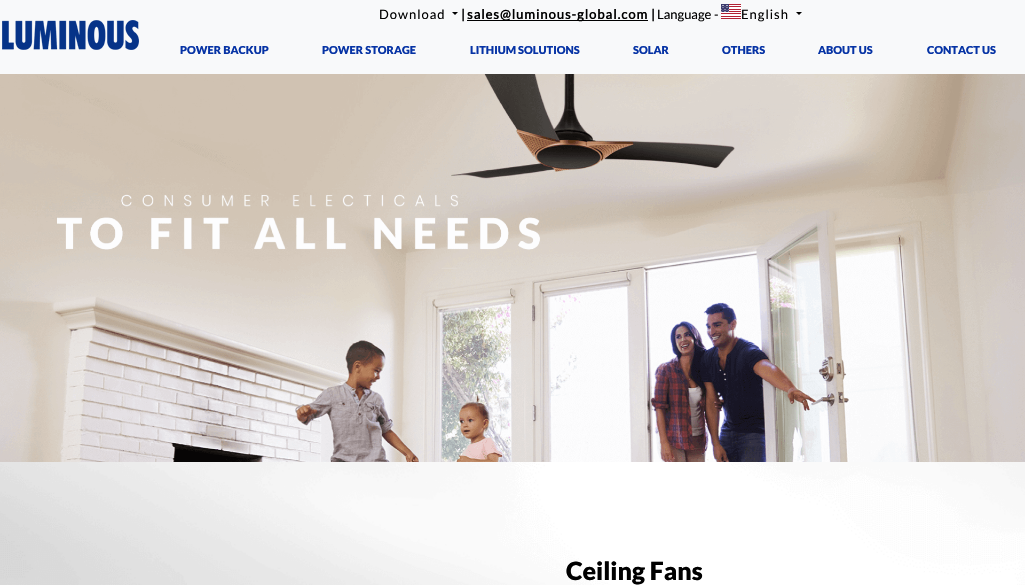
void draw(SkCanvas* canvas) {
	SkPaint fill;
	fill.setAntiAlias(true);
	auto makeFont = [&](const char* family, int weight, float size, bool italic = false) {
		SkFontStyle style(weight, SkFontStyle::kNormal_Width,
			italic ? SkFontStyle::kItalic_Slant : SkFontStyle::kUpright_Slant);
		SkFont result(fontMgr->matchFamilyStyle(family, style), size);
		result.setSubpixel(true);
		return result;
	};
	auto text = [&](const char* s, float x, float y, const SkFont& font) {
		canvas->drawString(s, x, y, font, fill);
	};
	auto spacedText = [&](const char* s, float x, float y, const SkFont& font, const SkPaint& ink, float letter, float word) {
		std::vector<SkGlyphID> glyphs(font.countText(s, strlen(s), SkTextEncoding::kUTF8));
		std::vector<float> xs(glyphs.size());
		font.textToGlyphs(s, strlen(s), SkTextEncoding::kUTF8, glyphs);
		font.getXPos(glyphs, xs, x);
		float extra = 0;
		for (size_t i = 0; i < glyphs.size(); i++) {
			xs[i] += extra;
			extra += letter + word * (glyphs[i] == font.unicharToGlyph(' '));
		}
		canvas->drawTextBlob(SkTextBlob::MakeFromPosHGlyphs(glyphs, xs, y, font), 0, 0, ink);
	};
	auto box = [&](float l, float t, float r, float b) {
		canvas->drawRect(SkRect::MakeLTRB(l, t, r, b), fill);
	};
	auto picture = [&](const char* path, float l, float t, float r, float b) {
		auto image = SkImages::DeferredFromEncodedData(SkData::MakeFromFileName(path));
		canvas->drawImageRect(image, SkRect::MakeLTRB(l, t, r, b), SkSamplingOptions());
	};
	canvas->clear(0xFFFFFFFF);
	fill.setColor(0xFFF8F9FA);
	box(0, 0, 1025, 74);
	picture("image0.png", 2, 20, 139, 50);
	fill.setColor(0xFF000000);
	canvas->drawPath(SkPathBuilder().moveTo(452, 12).lineTo(458, 12).lineTo(455, 15).close().detach(), fill);
	box(467, 20, 648, 21);
	picture("image1.png", 721, 4, 741, 19);
	canvas->drawPath(SkPathBuilder().moveTo(796, 12).lineTo(802, 12).lineTo(799, 15).close().detach(), fill);
	picture("image2.png", 0, 462, 1025, 585);
	picture("image3.png", 0, 74, 1025, 462);
	auto font1 = makeFont("Lato", 400, 13);
	spacedText("Download", 379, 19, font1, fill, 1, 0);
	auto font2 = makeFont("Lato", 700, 13);
	text("|", 461, 19, font2);
	spacedText("sales@luminous-global.com", 467, 19, font2, fill, 1, 0);
	text("|", 651, 19, font2);
	text("Language -", 657, 19, font1);
	spacedText("English", 741, 19, font1, fill, 1, 0);
	auto font3 = makeFont("Lato", 900, 11);
	fill.setColor(0xFF0633A5);
	text("POWER BACKUP", 180, 54, font3);
	text("POWER STORAGE", 322, 54, font3);
	text("LITHIUM SOLUTIONS", 470, 54, font3);
	text("SOLAR", 633, 54, font3);
	text("OTHERS", 722, 54, font3);
	text("ABOUT US", 818, 54, font3);
	text("CONTACT US", 927, 54, font3);
	auto font4 = makeFont("Lato", 900, 25);
	fill.setColor(0xFF000000);
	text("Ceiling Fans", 566, 580, font4);
}
